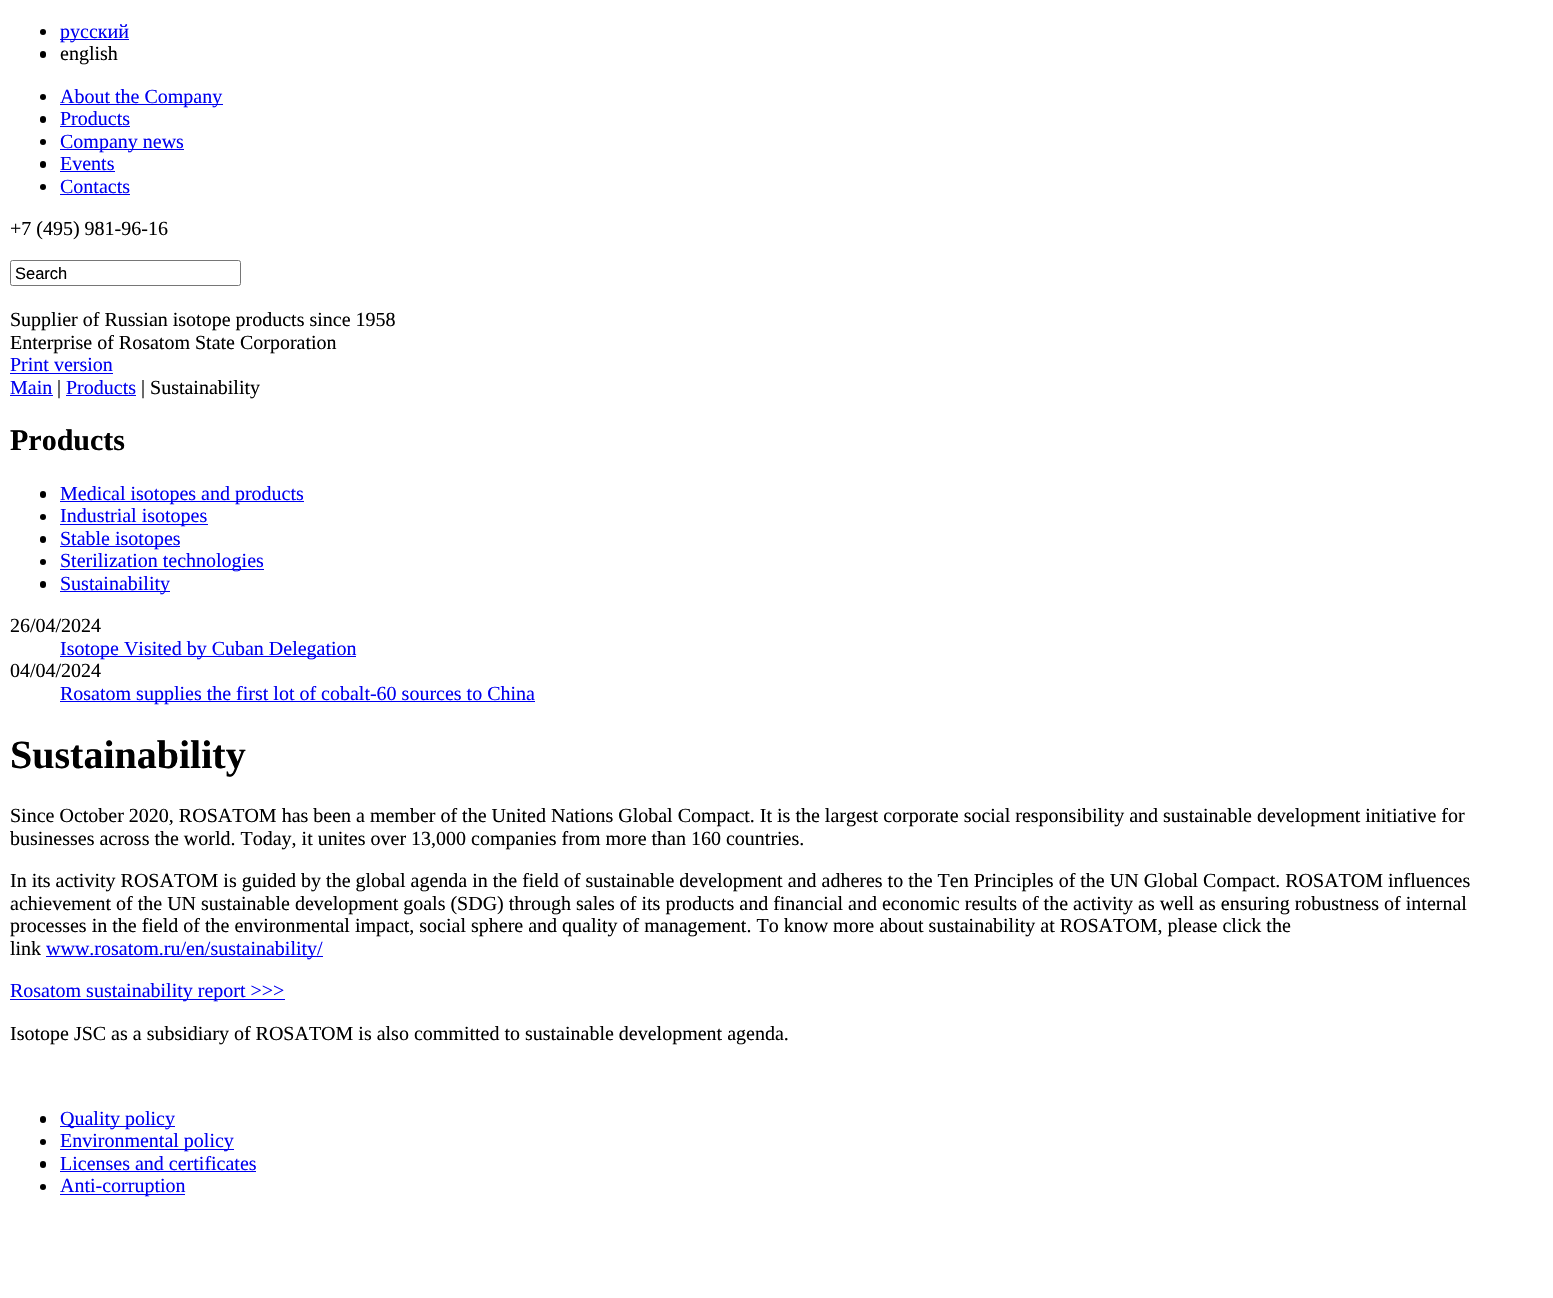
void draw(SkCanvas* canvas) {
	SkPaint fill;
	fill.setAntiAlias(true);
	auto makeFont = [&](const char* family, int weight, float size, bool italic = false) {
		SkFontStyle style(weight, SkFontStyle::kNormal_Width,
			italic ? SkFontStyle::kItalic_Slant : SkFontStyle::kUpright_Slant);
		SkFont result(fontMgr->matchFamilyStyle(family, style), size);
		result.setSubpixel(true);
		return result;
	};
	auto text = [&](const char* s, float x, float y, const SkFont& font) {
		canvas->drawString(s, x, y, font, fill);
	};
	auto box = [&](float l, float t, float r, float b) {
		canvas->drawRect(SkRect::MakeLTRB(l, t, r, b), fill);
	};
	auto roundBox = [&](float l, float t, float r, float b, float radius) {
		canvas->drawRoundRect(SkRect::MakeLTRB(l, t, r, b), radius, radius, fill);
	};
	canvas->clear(0xFFFFFFFF);
	fill.setColor(0xFF000000);
	canvas->drawCircle(43, 32, 3, fill);
	fill.setColor(0xFF0000EE);
	box(60, 39, 129, 40);
	fill.setColor(0xFF000000);
	roundBox(40, 51, 46, 58, 3);
	canvas->drawCircle(43, 97, 3, fill);
	fill.setColor(0xFF0000EE);
	box(60, 104, 223, 105);
	fill.setColor(0xFF000000);
	roundBox(40, 116, 46, 123, 3);
	fill.setColor(0xFF0000EE);
	box(60, 126, 130, 127);
	fill.setColor(0xFF000000);
	canvas->drawCircle(43, 142, 3, fill);
	fill.setColor(0xFF0000EE);
	box(60, 149, 184, 150);
	fill.setColor(0xFF000000);
	roundBox(40, 161, 46, 168, 3);
	fill.setColor(0xFF0000EE);
	box(60, 171, 115, 172);
	fill.setColor(0xFF000000);
	canvas->drawCircle(43, 187, 3, fill);
	fill.setColor(0xFF0000EE);
	box(60, 194, 130, 195);
	fill.setStyle(SkPaint::kStroke_Style);
	fill.setStrokeWidth(1);
	fill.setColor(0xFF767676);
	canvas->drawRoundRect(SkRect::MakeLTRB(10.5f, 260.5f, 240.5f, 285.5f), 2, 2, fill);
	fill.setStyle(SkPaint::kFill_Style);
	fill.setColor(0xFF0000EE);
	box(10, 373, 113, 374);
	box(10, 395, 53, 396);
	box(66, 395, 136, 396);
	fill.setColor(0xFF000000);
	roundBox(40, 491, 46, 498, 3);
	fill.setColor(0xFF0000EE);
	box(60, 501, 304, 502);
	fill.setColor(0xFF000000);
	canvas->drawCircle(43, 517, 3, fill);
	fill.setColor(0xFF0000EE);
	box(60, 524, 208, 525);
	fill.setColor(0xFF000000);
	roundBox(40, 536, 46, 543, 3);
	fill.setColor(0xFF0000EE);
	box(60, 546, 180, 547);
	fill.setColor(0xFF000000);
	canvas->drawCircle(43, 562, 3, fill);
	fill.setColor(0xFF0000EE);
	box(60, 569, 264, 570);
	fill.setColor(0xFF000000);
	roundBox(40, 581, 46, 588, 3);
	fill.setColor(0xFF0000EE);
	box(60, 591, 170, 592);
	box(60, 656, 356, 657);
	box(60, 701, 535, 702);
	box(46, 956, 323, 957);
	box(10, 999, 285, 1000);
	fill.setColor(0xFF000000);
	roundBox(40, 1116, 46, 1123, 3);
	fill.setColor(0xFF0000EE);
	box(60, 1126, 175, 1127);
	fill.setColor(0xFF000000);
	canvas->drawCircle(43, 1142, 3, fill);
	fill.setColor(0xFF0000EE);
	box(60, 1149, 234, 1150);
	fill.setColor(0xFF000000);
	roundBox(40, 1161, 46, 1168, 3);
	fill.setColor(0xFF0000EE);
	box(60, 1171, 256, 1172);
	fill.setColor(0xFF000000);
	canvas->drawCircle(43, 1187, 3, fill);
	fill.setColor(0xFF0000EE);
	box(60, 1194, 185, 1195);
	auto font1 = makeFont("Liberation Serif", 400, 20);
	text("русский", 60, 38, font1);
	fill.setColor(0xFF000000);
	text("english", 60, 60, font1);
	fill.setColor(0xFF0000EE);
	text("About the Company", 60, 103, font1);
	text("Products", 60, 125, font1);
	text("Company news", 60, 148, font1);
	text("Events", 60, 170, font1);
	text("Contacts", 60, 193, font1);
	fill.setColor(0xFF000000);
	text("+7 (495) 981-96-16", 10, 235, font1);
	auto font2 = makeFont("Liberation Sans", 400, 16.5f);
	text("Search", 15, 279, font2);
	text("Supplier of Russian isotope products since 1958", 10, 326, font1);
	text("Enterprise of Rosatom State Corporation", 10, 349, font1);
	fill.setColor(0xFF0000EE);
	text("Print version", 10, 371, font1);
	text("Main", 10, 394, font1);
	fill.setColor(0xFF000000);
	text("|", 57, 394, font1);
	fill.setColor(0xFF0000EE);
	text("Products", 66, 394, font1);
	fill.setColor(0xFF000000);
	text("| Sustainability", 141, 394, font1);
	auto font3 = makeFont("Liberation Serif", 700, 30);
	text("Products", 10, 450, font3);
	fill.setColor(0xFF0000EE);
	text("Medical isotopes and products", 60, 500, font1);
	text("Industrial isotopes", 60, 522, font1);
	text("Stable isotopes", 60, 545, font1);
	text("Sterilization technologies", 60, 567, font1);
	text("Sustainability", 60, 590, font1);
	fill.setColor(0xFF000000);
	text("26/04/2024", 10, 632, font1);
	fill.setColor(0xFF0000EE);
	text("Isotope Visited by Cuban Delegation", 60, 655, font1);
	fill.setColor(0xFF000000);
	text("04/04/2024", 10, 677, font1);
	fill.setColor(0xFF0000EE);
	text("Rosatom supplies the first lot of cobalt-60 sources to China", 60, 700, font1);
	auto font4 = makeFont("Liberation Serif", 700, 40);
	fill.setColor(0xFF000000);
	text("Sustainability", 10, 768, font4);
	text("Since October 2020, ROSATOM has been a member of the United Nations Global Compact. It is the largest corporate social responsibility and sustainable development initiative for", 10, 822, font1);
	text("businesses across the world. Today, it unites over 13,000 companies from more than 160 countries.", 10, 845, font1);
	text("In its activity ROSATOM is guided by the global agenda in the field of sustainable development and adheres to the Ten Principles of the UN Global Compact. ROSATOM influences", 10, 887, font1);
	text("achievement of the UN sustainable development goals (SDG) through sales of its products and financial and economic results of the activity as well as ensuring robustness of internal", 10, 910, font1);
	text("processes in the field of the environmental impact, social sphere and quality of management. To know more about sustainability at ROSATOM, please click the", 10, 932, font1);
	text("link", 10, 955, font1);
	fill.setColor(0xFF0000EE);
	text("www.rosatom.ru/en/sustainability/", 46, 955, font1);
	text("Rosatom sustainability report >>>", 10, 997, font1);
	fill.setColor(0xFF000000);
	text("Isotope JSC as a subsidiary of ROSATOM is also committed to sustainable development agenda.", 10, 1040, font1);
	fill.setColor(0xFF0000EE);
	text("Quality policy", 60, 1125, font1);
	text("Environmental policy", 60, 1147, font1);
	text("Licenses and certificates", 60, 1170, font1);
	text("Anti-corruption", 60, 1192, font1);
}
